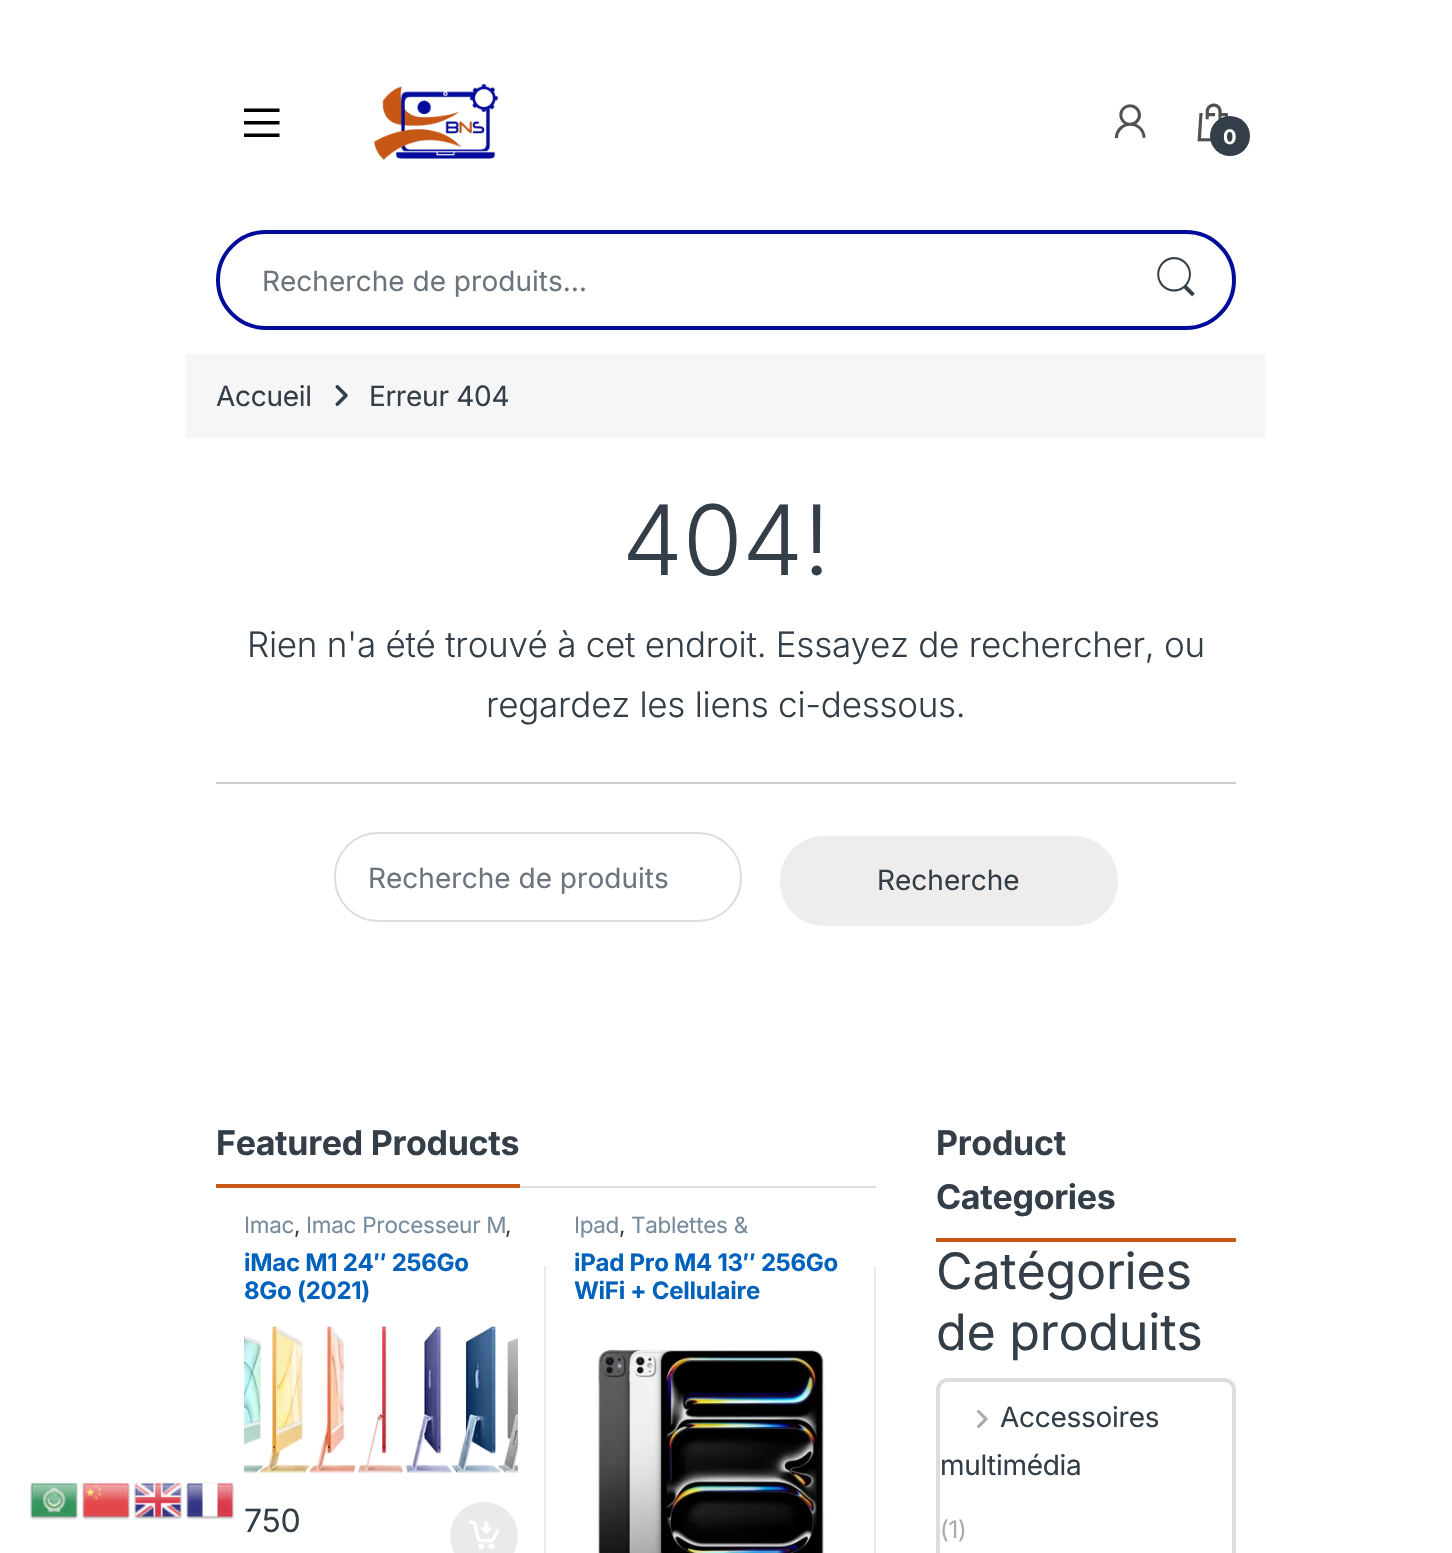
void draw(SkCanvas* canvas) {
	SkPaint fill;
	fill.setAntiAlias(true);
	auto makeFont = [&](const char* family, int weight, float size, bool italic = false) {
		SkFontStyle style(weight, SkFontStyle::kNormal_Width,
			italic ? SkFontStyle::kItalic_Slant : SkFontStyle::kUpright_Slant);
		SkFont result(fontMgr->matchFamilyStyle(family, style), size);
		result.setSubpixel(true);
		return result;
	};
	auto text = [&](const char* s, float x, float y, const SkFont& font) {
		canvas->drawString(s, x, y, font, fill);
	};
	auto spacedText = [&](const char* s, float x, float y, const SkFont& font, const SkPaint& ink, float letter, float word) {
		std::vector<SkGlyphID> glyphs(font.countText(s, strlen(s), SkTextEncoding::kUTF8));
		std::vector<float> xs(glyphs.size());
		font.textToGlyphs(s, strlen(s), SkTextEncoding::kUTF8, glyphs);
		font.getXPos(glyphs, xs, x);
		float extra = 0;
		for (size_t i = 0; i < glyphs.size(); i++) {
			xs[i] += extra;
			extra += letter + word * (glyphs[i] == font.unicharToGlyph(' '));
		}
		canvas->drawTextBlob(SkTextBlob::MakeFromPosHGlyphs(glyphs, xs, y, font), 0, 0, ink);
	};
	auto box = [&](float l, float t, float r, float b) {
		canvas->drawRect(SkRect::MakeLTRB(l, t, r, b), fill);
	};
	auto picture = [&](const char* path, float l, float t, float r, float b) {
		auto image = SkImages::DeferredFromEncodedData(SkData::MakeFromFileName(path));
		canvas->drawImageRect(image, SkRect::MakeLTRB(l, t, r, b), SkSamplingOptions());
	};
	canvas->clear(0xFFFFFFFF);
	picture("image0.png", 30, 1482, 78, 1520);
	picture("image1.png", 82, 1482, 130, 1520);
	picture("image2.png", 134, 1482, 182, 1520);
	picture("image3.png", 186, 1482, 234, 1520);
	fill.setColor(0xFF000000);
	canvas->drawPath(SkPathBuilder().moveTo(244, 137).lineTo(244, 133.5f).lineTo(279.5f, 133.5f).lineTo(279.5f, 137).close().moveTo(244, 121).lineTo(279.5f, 121).lineTo(279.5f, 124.5f).lineTo(244, 124.5f).close().moveTo(244, 108.5f).lineTo(279.5f, 108.5f).lineTo(279.5f, 112).lineTo(244, 112).close().detach(), fill);
	picture("image4.png", 374, 83, 499, 160);
	picture("image5.png", 1114, 104, 1146, 139);
	picture("image6.png", 1197, 103, 1229, 142);
	fill.setColor(0xFF333E48);
	canvas->drawCircle(1230, 136, 20, fill);
	fill.setStyle(SkPaint::kStroke_Style);
	fill.setStrokeWidth(4);
	fill.setColor(0xFF010D9A);
	canvas->drawRoundRect(SkRect::MakeLTRB(218, 232, 1234, 328), 48, 48, fill);
	picture("image7.png", 1157, 257, 1195, 297);
	fill.setStyle(SkPaint::kFill_Style);
	fill.setColor(0xFFF7F6F6);
	box(186, 354, 1266, 438);
	picture("image8.png", 335, 385, 348, 406);
	fill.setColor(0xFFCCCFD1);
	box(216, 782, 1236, 784);
	fill.setStyle(SkPaint::kStroke_Style);
	fill.setStrokeWidth(2);
	fill.setColor(0xFFDDDDDD);
	canvas->drawRoundRect(SkRect::MakeLTRB(335, 833, 741, 921), 43, 43, fill);
	fill.setStyle(SkPaint::kFill_Style);
	fill.setColor(0xFFEFECEC);
	canvas->drawRoundRect(SkRect::MakeLTRB(781, 837, 1117, 925), 43, 43, fill);
	fill.setStyle(SkPaint::kStroke_Style);
	canvas->drawRoundRect(SkRect::MakeLTRB(781, 837, 1117, 925), 43, 43, fill);
	fill.setStyle(SkPaint::kFill_Style);
	fill.setColor(0xFFDDDDDD);
	box(520, 1186, 876, 1188);
	fill.setColor(0xFFC85617);
	box(216, 1184, 520, 1188);
	picture("image9.png", 244, 1326, 518, 1474);
	fill.setColor(0xFFEAEAEA);
	canvas->drawCircle(484, 1536, 34, fill);
	picture("image10.png", 469, 1520, 500, 1549);
	box(544, 1266, 546, 1553);
	picture("image11.png", 596, 1349, 826, 1553);
	box(874, 1266, 876, 1553);
	fill.setColor(0xFFC85617);
	box(936, 1238, 1236, 1242);
	fill.setStyle(SkPaint::kStroke_Style);
	fill.setStrokeWidth(4);
	fill.setColor(0xFFDDDDDD);
	canvas->drawRoundRect(SkRect::MakeLTRB(938, 1380, 1234, 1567), 10, 10, fill);
	picture("image12.png", 977, 1410, 988, 1428);
	auto font1 = makeFont("Inter", 700, 20);
	fill.setStyle(SkPaint::kFill_Style);
	fill.setColor(0xFFFFFFFF);
	spacedText("0", 1223, 144, font1, fill, -0.28f, 0);
	auto font2 = makeFont("Inter", 400, 28);
	fill.setColor(0xFF6C757D);
	text("Recherche de produits…", 262, 291, font2);
	fill.setColor(0xFF333E48);
	spacedText("Accueil", 216, 406, font2, fill, -0.28f, 0);
	spacedText("Erreur 404", 369, 406, font2, fill, -0.28f, 0);
	auto font3 = makeFont("Inter", 300, 97);
	spacedText("404!", 622, 575, font3, fill, -0.28f, 0);
	auto font4 = makeFont("Inter", 300, 35);
	spacedText("Rien n'a été trouvé à cet endroit. Essayez de rechercher, ou", 247, 657, font4, fill, -0.28f, 0);
	spacedText("regardez les liens ci-dessous.", 486, 717, font4, fill, -0.28f, 0);
	fill.setColor(0xFF6C757D);
	text("Recherche de produits", 368, 888, font2);
	fill.setColor(0xFF333E48);
	text("Recherche", 877, 890, font2);
	auto font5 = makeFont("Inter", 700, 34);
	spacedText("Featured Products", 216, 1155, font5, fill, -0.28f, 0);
	auto font6 = makeFont("Inter", 400, 22.5f);
	fill.setColor(0xFF768B9E);
	spacedText("Imac", 244, 1233, font6, fill, -0.28f, 0);
	fill.setColor(0xFF333E48);
	spacedText(",", 294, 1233, font6, fill, -0.28f, 0);
	fill.setColor(0xFF768B9E);
	spacedText("Imac Processeur M", 306, 1233, font6, fill, -0.28f, 0);
	fill.setColor(0xFF333E48);
	spacedText(",", 505, 1233, font6, fill, -0.28f, 0);
	auto font7 = makeFont("Inter", 700, 24);
	fill.setColor(0xFF0062BD);
	spacedText("iMac M1 24″ 256Go", 244, 1271, font7, fill, -0.28f, 0);
	spacedText("8Go (2021)", 244, 1299, font7, fill, -0.28f, 0);
	auto font8 = makeFont("Inter", 400, 32);
	fill.setColor(0xFF333E48);
	spacedText("750", 244, 1532, font8, fill, -0.28f, 0);
	fill.setColor(0xFF768B9E);
	spacedText("Ipad", 574, 1233, font6, fill, -0.28f, 0);
	fill.setColor(0xFF333E48);
	spacedText(",", 619, 1233, font6, fill, -0.28f, 0);
	fill.setColor(0xFF768B9E);
	spacedText("Tablettes &", 631, 1233, font6, fill, -0.28f, 0);
	fill.setColor(0xFF0062BD);
	spacedText("iPad Pro M4 13″ 256Go", 574, 1271, font7, fill, -0.28f, 0);
	spacedText("WiFi + Cellulaire", 574, 1299, font7, fill, -0.28f, 0);
	fill.setColor(0xFF333E48);
	spacedText("Product", 936, 1155, font5, fill, -0.28f, 0);
	spacedText("Categories", 936, 1209, font5, fill, -0.28f, 0);
	auto font9 = makeFont("Inter", 400, 50.25f);
	spacedText("Catégories", 936, 1289, font9, fill, -0.28f, 0);
	spacedText("de produits", 936, 1350, font9, fill, -0.28f, 0);
	spacedText("Accessoires", 1000, 1427, font2, fill, -0.28f, 0);
	spacedText("multimédia", 940, 1475, font2, fill, -0.28f, 0);
	auto font10 = makeFont("Inter", 400, 24);
	fill.setColor(0xFFAAAAAA);
	spacedText("(1)", 940, 1538, font10, fill, -0.28f, 0);
}
